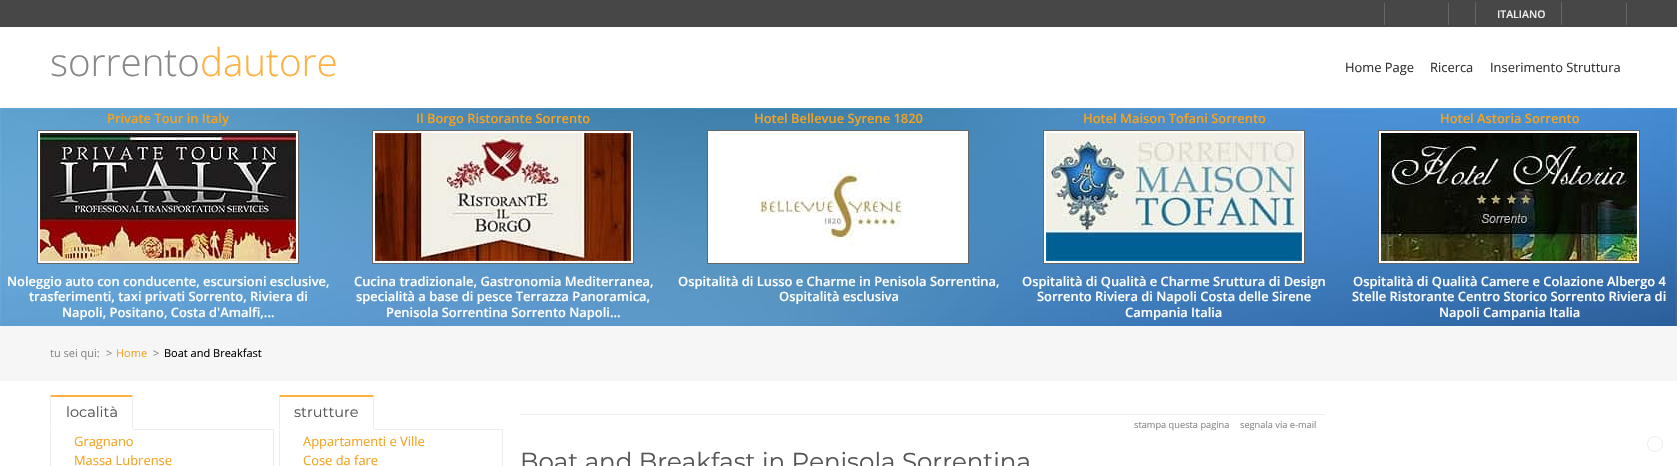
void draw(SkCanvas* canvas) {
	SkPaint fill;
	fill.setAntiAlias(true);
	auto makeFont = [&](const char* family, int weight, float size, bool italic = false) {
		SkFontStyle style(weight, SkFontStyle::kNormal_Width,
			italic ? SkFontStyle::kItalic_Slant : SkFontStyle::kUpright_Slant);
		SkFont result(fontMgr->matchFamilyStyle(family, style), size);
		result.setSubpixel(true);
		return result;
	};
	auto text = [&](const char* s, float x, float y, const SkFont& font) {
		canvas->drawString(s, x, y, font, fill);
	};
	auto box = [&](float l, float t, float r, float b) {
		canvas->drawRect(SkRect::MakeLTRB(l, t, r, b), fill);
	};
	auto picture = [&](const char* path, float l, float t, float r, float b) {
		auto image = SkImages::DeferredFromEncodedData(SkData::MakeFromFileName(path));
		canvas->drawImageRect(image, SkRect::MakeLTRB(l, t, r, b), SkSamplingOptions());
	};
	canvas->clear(0xFFFFFFFF);
	fill.setColor(0xFF474747);
	box(0, 0, 1677, 27);
	fill.setColor(0xFF666666);
	box(1448, 3, 1449, 25);
	box(1384, 3, 1385, 25);
	box(1561, 2, 1562, 25);
	box(1475, 2, 1476, 25);
	box(1626, 3, 1627, 25);
	picture("image0.png", 0, 108, 1677, 326);
	fill.setColor(0xFFFFFFFF);
	canvas->drawRect(SkRect::MakeLTRB(37.5f, 130.5f, 298.5f, 263.5f), fill);
	fill.setStyle(SkPaint::kStroke_Style);
	fill.setStrokeWidth(1);
	fill.setColor(0xFF666666);
	canvas->drawRect(SkRect::MakeLTRB(37.5f, 130.5f, 298.5f, 263.5f), fill);
	picture("image1.png", 40, 133, 296, 261);
	fill.setStyle(SkPaint::kFill_Style);
	fill.setColor(0xFFFFFFFF);
	canvas->drawRect(SkRect::MakeLTRB(372.5f, 130.5f, 633.5f, 263.5f), fill);
	fill.setStyle(SkPaint::kStroke_Style);
	fill.setColor(0xFF666666);
	canvas->drawRect(SkRect::MakeLTRB(372.5f, 130.5f, 633.5f, 263.5f), fill);
	picture("image2.png", 375, 133, 631, 261);
	fill.setStyle(SkPaint::kFill_Style);
	fill.setColor(0xFFFFFFFF);
	canvas->drawRect(SkRect::MakeLTRB(707.5f, 130.5f, 968.5f, 263.5f), fill);
	fill.setStyle(SkPaint::kStroke_Style);
	fill.setColor(0xFF666666);
	canvas->drawRect(SkRect::MakeLTRB(707.5f, 130.5f, 968.5f, 263.5f), fill);
	picture("image3.png", 758, 165, 902, 245);
	fill.setStyle(SkPaint::kFill_Style);
	fill.setColor(0xFFFFFFFF);
	canvas->drawRect(SkRect::MakeLTRB(1043.5f, 130.5f, 1304.5f, 263.5f), fill);
	fill.setStyle(SkPaint::kStroke_Style);
	fill.setColor(0xFF666666);
	canvas->drawRect(SkRect::MakeLTRB(1043.5f, 130.5f, 1304.5f, 263.5f), fill);
	picture("image4.png", 1046, 133, 1302, 261);
	fill.setStyle(SkPaint::kFill_Style);
	fill.setColor(0xFFFFFFFF);
	canvas->drawRect(SkRect::MakeLTRB(1378.5f, 130.5f, 1639.5f, 263.5f), fill);
	fill.setStyle(SkPaint::kStroke_Style);
	fill.setColor(0xFF666666);
	canvas->drawRect(SkRect::MakeLTRB(1378.5f, 130.5f, 1639.5f, 263.5f), fill);
	picture("image5.png", 1381, 133, 1637, 261);
	fill.setStyle(SkPaint::kFill_Style);
	fill.setColor(0xFFF6F6F6);
	box(0, 326, 1677, 381);
	fill.setColor(0xFFFFB141);
	canvas->drawPath(SkPathBuilder().moveTo(50, 395).lineTo(133, 395).lineTo(132, 397).lineTo(51, 397).close().detach(), fill);
	fill.setStyle(SkPaint::kStroke_Style);
	fill.setColor(0xFFEDEDED);
	canvas->drawRect(SkRect::MakeLTRB(50.5f, 429.5f, 273.5f, 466.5f), fill);
	fill.setStyle(SkPaint::kFill_Style);
	canvas->drawPath(SkPathBuilder().moveTo(133, 395).lineTo(133, 430).lineTo(132, 429).lineTo(132, 397).close().detach(), fill);
	fill.setColor(0xFFFFFFFF);
	box(50, 429, 133, 430);
	fill.setColor(0xFFEDEDED);
	canvas->drawPath(SkPathBuilder().moveTo(50, 430).lineTo(50, 395).lineTo(51, 397).lineTo(51, 429).close().detach(), fill);
	fill.setColor(0xFFFFB141);
	canvas->drawPath(SkPathBuilder().moveTo(279, 395).lineTo(374, 395).lineTo(373, 397).lineTo(280, 397).close().detach(), fill);
	fill.setStyle(SkPaint::kStroke_Style);
	fill.setColor(0xFFEDEDED);
	canvas->drawRect(SkRect::MakeLTRB(279.5f, 429.5f, 502.5f, 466.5f), fill);
	fill.setStyle(SkPaint::kFill_Style);
	canvas->drawPath(SkPathBuilder().moveTo(374, 395).lineTo(374, 430).lineTo(373, 429).lineTo(373, 397).close().detach(), fill);
	fill.setColor(0xFFFFFFFF);
	box(279, 429, 374, 430);
	fill.setColor(0xFFEDEDED);
	canvas->drawPath(SkPathBuilder().moveTo(279, 430).lineTo(279, 395).lineTo(280, 397).lineTo(280, 429).close().detach(), fill);
	box(520, 414, 1325, 415);
	fill.setStyle(SkPaint::kStroke_Style);
	canvas->drawCircle(1655, 444, 7.5f, fill);
	auto font1 = makeFont("Open Sans", 600, 10.5f);
	fill.setStyle(SkPaint::kFill_Style);
	text("ITALIANO", 1497, 18, font1);
	auto font2 = makeFont("Open Sans", 300, 38.5f);
	fill.setColor(0xFF888888);
	text("sorrento", 50, 76, font2);
	fill.setColor(0xFFFFB141);
	text("dautore", 200, 76, font2);
	auto font3 = makeFont("Open Sans", 400, 12.9f);
	fill.setColor(0xFF333333);
	text("Home Page", 1345, 72, font3);
	text("Ricerca", 1430, 72, font3);
	text("Inserimento Struttura", 1490, 72, font3);
	auto font4 = makeFont("Open Sans", 600, 12.9f);
	fill.setColor(0xFFF4A321);
	text("Private Tour in Italy", 107, 123, font4);
	fill.setColor(0xFFFFFFFF);
	text("Noleggio auto con conducente, escursioni esclusive,", 7, 286, font4);
	text("trasferimenti, taxi privati Sorrento, Riviera di", 29, 301, font4);
	text("Napoli, Positano, Costa d'Amalfi,...", 62, 317, font4);
	fill.setColor(0xFFF4A321);
	text("Il Borgo Ristorante Sorrento", 416, 123, font4);
	fill.setColor(0xFFFFFFFF);
	text("Cucina tradizionale, Gastronomia Mediterranea,", 354, 286, font4);
	text("specialità a base di pesce Terrazza Panoramica,", 356, 301, font4);
	text("Penisola Sorrentina Sorrento Napoli...", 386, 317, font4);
	fill.setColor(0xFFF4A321);
	text("Hotel Bellevue Syrene 1820", 754, 123, font4);
	fill.setColor(0xFFFFFFFF);
	text("Ospitalità di Lusso e Charme in Penisola Sorrentina,", 678, 286, font4);
	text("Ospitalità esclusiva", 779, 301, font4);
	fill.setColor(0xFFF4A321);
	text("Hotel Maison Tofani Sorrento", 1083, 123, font4);
	fill.setColor(0xFFFFFFFF);
	text("Ospitalità di Qualità e Charme Sruttura di Design", 1022, 286, font4);
	text("Sorrento Riviera di Napoli Costa delle Sirene", 1037, 301, font4);
	text("Campania Italia", 1125, 317, font4);
	fill.setColor(0xFFF4A321);
	text("Hotel Astoria Sorrento", 1440, 123, font4);
	fill.setColor(0xFFFFFFFF);
	text("Ospitalità di Qualità Camere e Colazione Albergo 4", 1353, 286, font4);
	text("Stelle Ristorante Centro Storico Sorrento Riviera di", 1352, 301, font4);
	text("Napoli Campania Italia", 1439, 317, font4);
	auto font5 = makeFont("Open Sans", 400, 11);
	fill.setColor(0xFF888888);
	text("tu sei qui:", 50, 357, font5);
	text(">", 106, 357, font5);
	fill.setColor(0xFFF4A321);
	text("Home", 116, 357, font5);
	fill.setColor(0xFF888888);
	text(">", 153, 357, font5);
	fill.setColor(0xFF000000);
	text("Boat and Breakfast", 164, 357, font5);
	auto font6 = makeFont("Montserrat", 400, 14.5f);
	fill.setColor(0xFF555555);
	text("località", 66, 417, font6);
	fill.setColor(0xFFF4A321);
	text("Gragnano", 74, 446, font3);
	text("Massa Lubrense", 74, 465, font3);
	fill.setColor(0xFF555555);
	text("strutture", 294, 417, font6);
	fill.setColor(0xFFF4A321);
	text("Appartamenti e Ville", 303, 446, font3);
	text("Cose da fare", 303, 465, font3);
	auto font7 = makeFont("Open Sans", 400, 9.25f);
	fill.setColor(0xFF888888);
	text("stampa questa pagina", 1134, 428, font7);
	text("segnala via e-mail", 1240, 428, font7);
	auto font8 = makeFont("Montserrat", 400, 24.5f);
	fill.setColor(0xFF555555);
	text("Boat and Breakfast in Penisola Sorrentina", 520, 470, font8);
}
